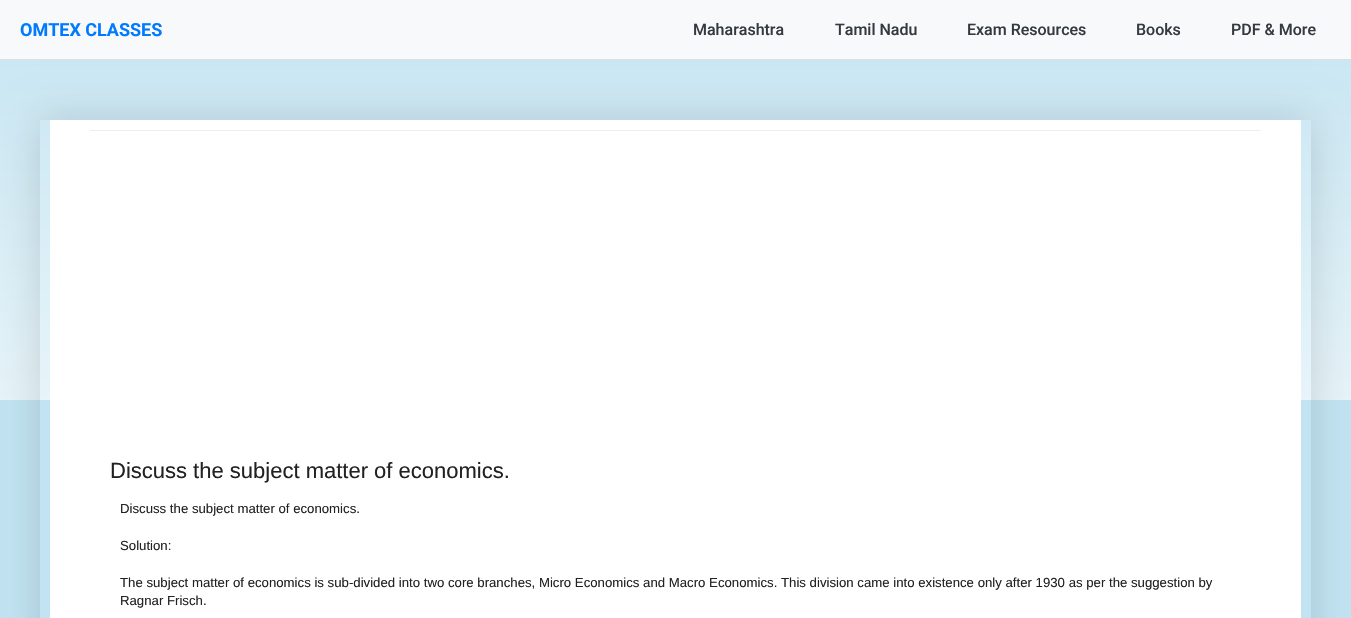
void draw(SkCanvas* canvas) {
	SkPaint fill;
	fill.setAntiAlias(true);
	auto makeFont = [&](const char* family, int weight, float size, bool italic = false) {
		SkFontStyle style(weight, SkFontStyle::kNormal_Width,
			italic ? SkFontStyle::kItalic_Slant : SkFontStyle::kUpright_Slant);
		SkFont result(fontMgr->matchFamilyStyle(family, style), size);
		result.setSubpixel(true);
		return result;
	};
	auto text = [&](const char* s, float x, float y, const SkFont& font) {
		canvas->drawString(s, x, y, font, fill);
	};
	auto box = [&](float l, float t, float r, float b) {
		canvas->drawRect(SkRect::MakeLTRB(l, t, r, b), fill);
	};
	auto picture = [&](const char* path, float l, float t, float r, float b) {
		auto image = SkImages::DeferredFromEncodedData(SkData::MakeFromFileName(path));
		canvas->drawImageRect(image, SkRect::MakeLTRB(l, t, r, b), SkSamplingOptions());
	};
	canvas->clear(0xFFC2E4F2);
	fill.setColor(0xFFF8F9FA);
	box(0, 0, 1351, 59);
	picture("image0.png", 0, 60, 1351, 400);
	canvas->save();
	canvas->clipPath(SkPathBuilder(SkPathFillType::kEvenOdd).moveTo(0, 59).lineTo(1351, 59).lineTo(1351, 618).lineTo(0, 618).close().moveTo(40, 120).lineTo(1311, 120).lineTo(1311, 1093).lineTo(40, 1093).close().detach(), true);
	fill.setColor(0x26000000);
	fill.setMaskFilter(SkMaskFilter::MakeBlur(kNormal_SkBlurStyle, 20));
	canvas->drawRect(SkRect::MakeLTRB(40, 120, 1311, 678), fill);
	fill.setMaskFilter(nullptr);
	canvas->restore();
	fill.setColor(0xFFE0E0E0);
	box(0, 59, 1351, 60);
	fill.setColor(0xFFFFFFFF);
	box(50, 120, 1301, 618);
	fill.setColor(0xFFEEEEEE);
	box(90, 130, 1261, 131);
	auto font1 = makeFont("Roboto", 700, 18);
	fill.setColor(0xFF007BFF);
	text("OMTEX CLASSES", 20, 36, font1);
	auto font2 = makeFont("Roboto", 500, 16);
	fill.setColor(0xFF343A40);
	text("Maharashtra", 693, 35, font2);
	text("Tamil Nadu", 835, 35, font2);
	text("Exam Resources", 967, 35, font2);
	text("Books", 1136, 35, font2);
	text("PDF & More", 1231, 35, font2);
	auto font3 = makeFont("Liberation Sans", 400, 22);
	fill.setColor(0xFF222222);
	text("Discuss the subject matter of economics.", 110, 478, font3);
	auto font4 = makeFont("Liberation Sans", 400, 13.2f);
	text("Discuss the subject matter of economics.", 120, 513, font4);
	text("Solution:", 120, 550, font4);
	text("The subject matter of economics is sub-divided into two core branches, Micro Economics and Macro Economics. This division came into existence only after 1930 as per the suggestion by", 120, 587, font4);
	text("Ragnar Frisch.", 120, 605, font4);
}
